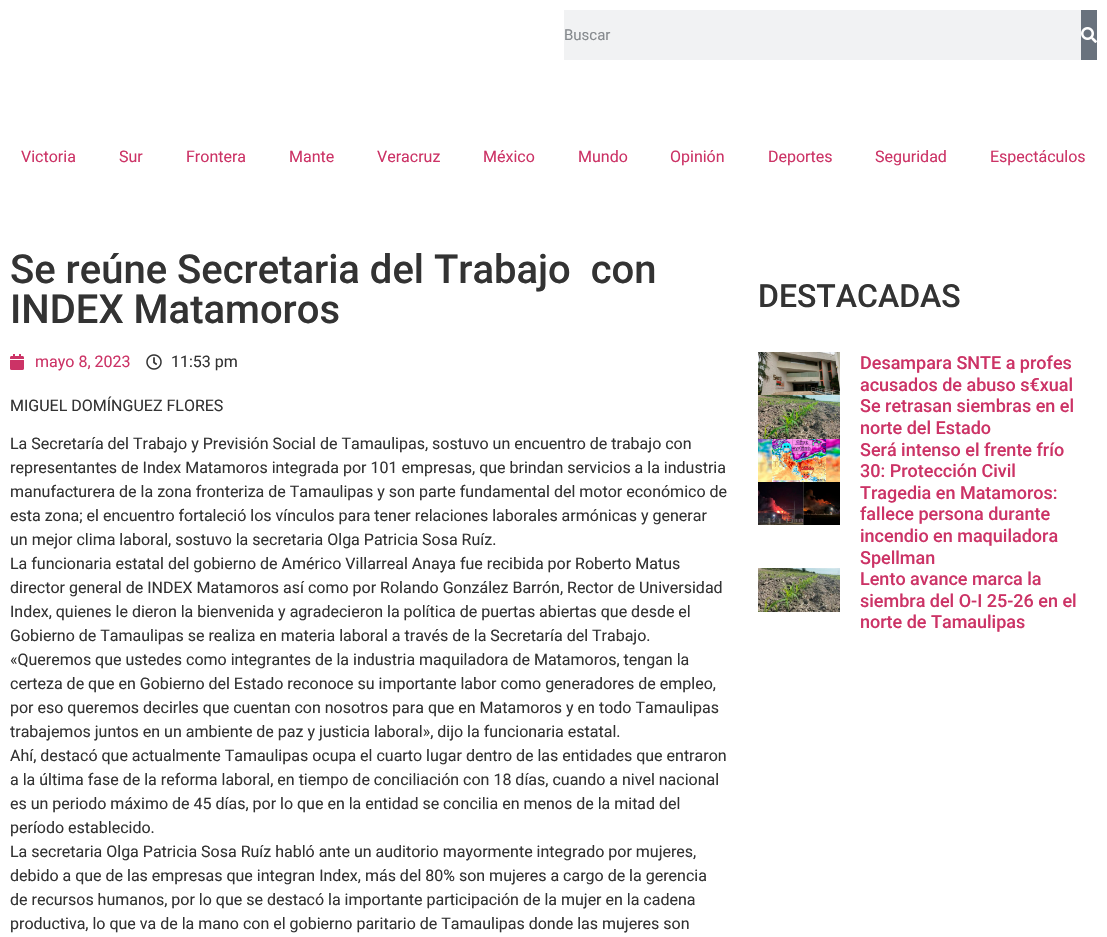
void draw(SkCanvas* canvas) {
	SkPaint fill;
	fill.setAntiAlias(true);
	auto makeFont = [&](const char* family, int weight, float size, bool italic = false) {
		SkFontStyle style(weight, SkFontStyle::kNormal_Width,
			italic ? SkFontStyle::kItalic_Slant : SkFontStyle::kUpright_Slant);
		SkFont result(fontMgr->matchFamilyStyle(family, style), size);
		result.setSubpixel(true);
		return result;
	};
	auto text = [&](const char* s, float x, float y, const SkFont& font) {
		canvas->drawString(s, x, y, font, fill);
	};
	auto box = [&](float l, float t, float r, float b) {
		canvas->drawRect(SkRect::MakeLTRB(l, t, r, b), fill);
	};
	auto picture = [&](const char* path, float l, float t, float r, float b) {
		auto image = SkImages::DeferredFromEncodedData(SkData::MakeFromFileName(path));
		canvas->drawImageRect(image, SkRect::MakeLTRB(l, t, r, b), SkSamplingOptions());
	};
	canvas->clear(0xFFFFFFFF);
	fill.setColor(0xFFF1F2F3);
	box(564, 10, 1081, 60);
	fill.setColor(0xFF69727D);
	box(1081, 10, 1097, 60);
	picture("image0.png", 1081, 27, 1097, 43);
	picture("image1.png", 10, 354, 24, 370);
	picture("image2.png", 146, 354, 162, 370);
	picture("image3.png", 758, 352, 840, 395);
	picture("image4.png", 758, 395, 840, 439);
	picture("image5.png", 758, 439, 840, 482);
	picture("image6.png", 758, 482, 840, 525);
	picture("image7.png", 758, 568, 840, 612);
	auto font1 = makeFont("Roboto", 400, 15);
	fill.setColor(0xFF868A8E);
	text("Buscar", 564, 40, font1);
	auto font2 = makeFont("Roboto", 400, 16);
	fill.setColor(0xFFCC3366);
	text("Victoria", 21, 162, font2);
	text("Sur", 119, 162, font2);
	text("Frontera", 186, 162, font2);
	text("Mante", 289, 162, font2);
	text("Veracruz", 377, 162, font2);
	text("México", 483, 162, font2);
	text("Mundo", 578, 162, font2);
	text("Opinión", 670, 162, font2);
	text("Deportes", 768, 162, font2);
	text("Seguridad", 875, 162, font2);
	text("Espectáculos", 990, 162, font2);
	auto font3 = makeFont("Roboto", 500, 40);
	fill.setColor(0xFF333333);
	text("Se reúne Secretaria del Trabajo  con", 10, 283, font3);
	text("INDEX Matamoros", 10, 323, font3);
	fill.setColor(0xFFCC3366);
	text("mayo 8, 2023", 35, 367, font2);
	fill.setColor(0xFF333333);
	text("11:53 pm", 171, 367, font2);
	text("MIGUEL DOMÍNGUEZ FLORES", 10, 411, font2);
	text("La Secretaría del Trabajo y Previsión Social de Tamaulipas, sostuvo un encuentro de trabajo con", 10, 449, font2);
	text("representantes de Index Matamoros integrada por 101 empresas, que brindan servicios a la industria", 10, 473, font2);
	text("manufacturera de la zona fronteriza de Tamaulipas y son parte fundamental del motor económico de", 10, 497, font2);
	text("esta zona; el encuentro fortaleció los vínculos para tener relaciones laborales armónicas y generar", 10, 521, font2);
	text("un mejor clima laboral, sostuvo la secretaria Olga Patricia Sosa Ruíz.", 10, 545, font2);
	text("La funcionaria estatal del gobierno de Américo Villarreal Anaya fue recibida por Roberto Matus", 10, 569, font2);
	text("director general de INDEX Matamoros así como por Rolando González Barrón, Rector de Universidad", 10, 593, font2);
	text("Index, quienes le dieron la bienvenida y agradecieron la política de puertas abiertas que desde el", 10, 617, font2);
	text("Gobierno de Tamaulipas se realiza en materia laboral a través de la Secretaría del Trabajo.", 10, 641, font2);
	text("«Queremos que ustedes como integrantes de la industria maquiladora de Matamoros, tengan la", 10, 665, font2);
	text("certeza de que en Gobierno del Estado reconoce su importante labor como generadores de empleo,", 10, 689, font2);
	text("por eso queremos decirles que cuentan con nosotros para que en Matamoros y en todo Tamaulipas", 10, 713, font2);
	text("trabajemos juntos en un ambiente de paz y justicia laboral», dijo la funcionaria estatal.", 10, 737, font2);
	text("Ahí, destacó que actualmente Tamaulipas ocupa el cuarto lugar dentro de las entidades que entraron", 10, 761, font2);
	text("a la última fase de la reforma laboral, en tiempo de conciliación con 18 días, cuando a nivel nacional", 10, 785, font2);
	text("es un periodo máximo de 45 días, por lo que en la entidad se concilia en menos de la mitad del", 10, 809, font2);
	text("período establecido.", 10, 833, font2);
	text("La secretaria Olga Patricia Sosa Ruíz habló ante un auditorio mayormente integrado por mujeres,", 10, 857, font2);
	text("debido a que de las empresas que integran Index, más del 80% son mujeres a cargo de la gerencia", 10, 881, font2);
	text("de recursos humanos, por lo que se destacó la importante participación de la mujer en la cadena", 10, 905, font2);
	text("productiva, lo que va de la mano con el gobierno paritario de Tamaulipas donde las mujeres son", 10, 929, font2);
	auto font4 = makeFont("Roboto", 500, 32);
	text("DESTACADAS", 758, 307, font4);
	auto font5 = makeFont("Roboto", 500, 18);
	fill.setColor(0xFFCC3366);
	text("Desampara SNTE a profes", 860, 369, font5);
	text("acusados de abuso s€xual", 860, 391, font5);
	text("Se retrasan siembras en el", 860, 412, font5);
	text("norte del Estado", 860, 434, font5);
	text("Será intenso el frente frío", 860, 456, font5);
	text("30: Protección Civil", 860, 477, font5);
	text("Tragedia en Matamoros:", 860, 499, font5);
	text("fallece persona durante", 860, 520, font5);
	text("incendio en maquiladora", 860, 542, font5);
	text("Spellman", 860, 564, font5);
	text("Lento avance marca la", 860, 585, font5);
	text("siembra del O-I 25-26 en el", 860, 607, font5);
	text("norte de Tamaulipas", 860, 628, font5);
}
